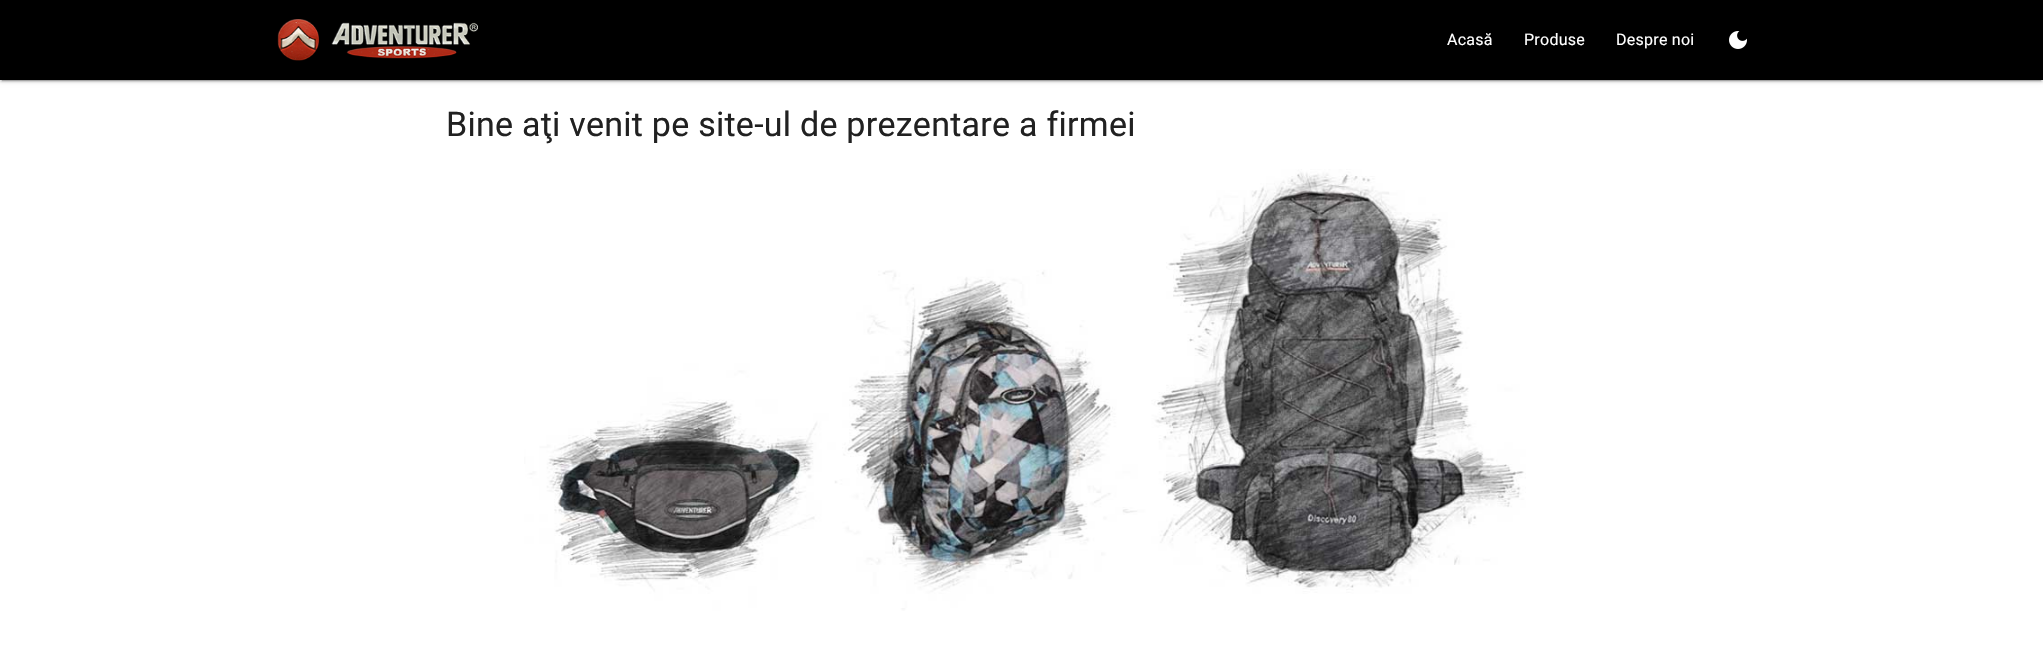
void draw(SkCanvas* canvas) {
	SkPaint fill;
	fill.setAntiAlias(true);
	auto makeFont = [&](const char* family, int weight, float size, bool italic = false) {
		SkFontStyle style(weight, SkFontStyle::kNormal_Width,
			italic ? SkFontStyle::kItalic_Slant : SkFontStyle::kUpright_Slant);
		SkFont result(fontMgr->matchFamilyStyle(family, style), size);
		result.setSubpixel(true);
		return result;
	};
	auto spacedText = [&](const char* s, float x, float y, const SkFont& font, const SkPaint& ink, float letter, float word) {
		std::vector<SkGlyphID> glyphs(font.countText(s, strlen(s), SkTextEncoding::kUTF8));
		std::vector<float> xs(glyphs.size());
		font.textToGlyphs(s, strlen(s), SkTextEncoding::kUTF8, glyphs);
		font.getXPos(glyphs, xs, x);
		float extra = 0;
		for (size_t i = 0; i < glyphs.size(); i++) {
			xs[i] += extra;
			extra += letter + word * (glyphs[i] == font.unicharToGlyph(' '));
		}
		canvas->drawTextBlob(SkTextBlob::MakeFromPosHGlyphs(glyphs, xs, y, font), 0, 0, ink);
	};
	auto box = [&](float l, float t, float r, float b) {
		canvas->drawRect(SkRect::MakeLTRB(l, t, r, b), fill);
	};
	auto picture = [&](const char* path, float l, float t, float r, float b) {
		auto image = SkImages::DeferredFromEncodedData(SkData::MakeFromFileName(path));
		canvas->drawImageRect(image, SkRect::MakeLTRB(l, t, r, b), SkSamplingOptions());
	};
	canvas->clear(0xFFFFFFFF);
	fill.setColor(0x1F000000);
	fill.setMaskFilter(SkMaskFilter::MakeBlur(kNormal_SkBlurStyle, 2.5f));
	canvas->drawRect(SkRect::MakeLTRB(0, 1, 2043, 81), fill);
	fill.setMaskFilter(nullptr);
	fill.setColor(0x24000000);
	fill.setMaskFilter(SkMaskFilter::MakeBlur(kNormal_SkBlurStyle, 1));
	canvas->drawRect(SkRect::MakeLTRB(0, 2, 2043, 82), fill);
	fill.setMaskFilter(nullptr);
	fill.setColor(0x33000000);
	fill.setMaskFilter(SkMaskFilter::MakeBlur(kNormal_SkBlurStyle, 0.5f));
	canvas->drawRect(SkRect::MakeLTRB(2, 5, 2041, 81), fill);
	fill.setMaskFilter(nullptr);
	fill.setColor(0xFF000000);
	box(0, 0, 2043, 80);
	picture("image0.png", 277, 19, 478, 61);
	picture("image1.png", 1729, 31, 1747, 49);
	picture("image2.png", 524, 169, 1526, 611);
	auto font1 = makeFont("Roboto", 400, 16);
	fill.setColor(0xFFFFFFFF);
	spacedText("Acasă", 1447, 45, font1, fill, 0.25f, 0);
	spacedText("Produse", 1524, 45, font1, fill, 0.25f, 0);
	spacedText("Despre noi", 1616, 45, font1, fill, 0.25f, 0);
	auto font2 = makeFont("Roboto", 400, 34);
	fill.setColor(0xFF212121);
	spacedText("Bine aţi venit pe site-ul de prezentare a firmei", 446, 136, font2, fill, 0.25f, 0);
}
